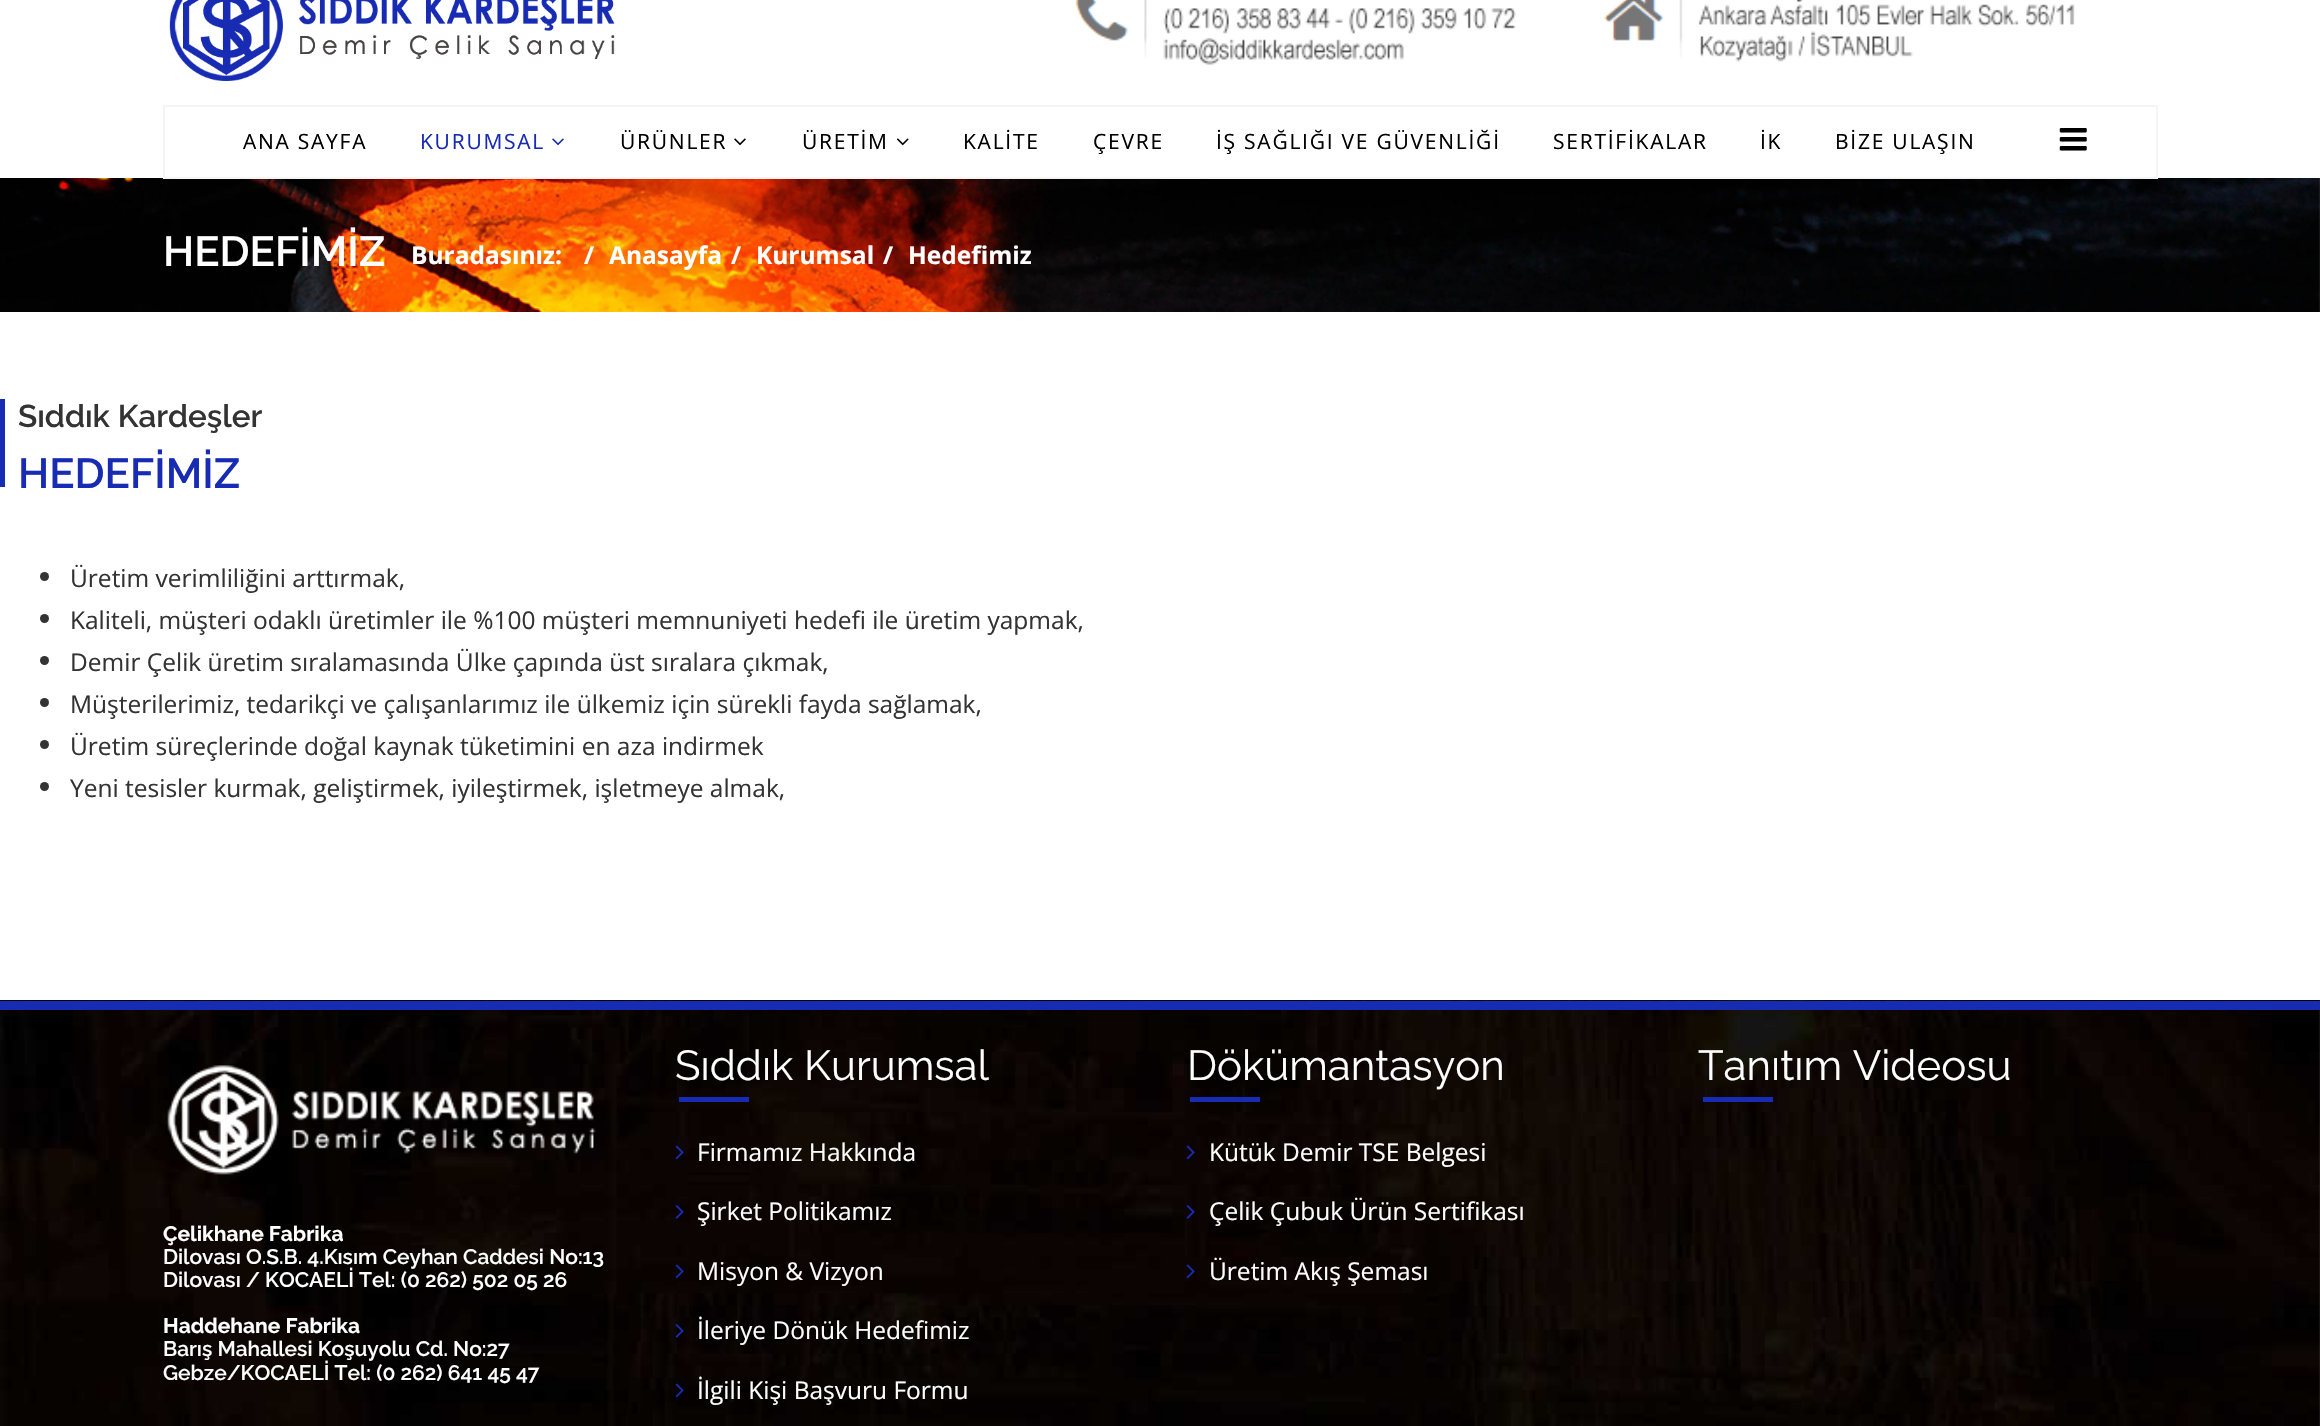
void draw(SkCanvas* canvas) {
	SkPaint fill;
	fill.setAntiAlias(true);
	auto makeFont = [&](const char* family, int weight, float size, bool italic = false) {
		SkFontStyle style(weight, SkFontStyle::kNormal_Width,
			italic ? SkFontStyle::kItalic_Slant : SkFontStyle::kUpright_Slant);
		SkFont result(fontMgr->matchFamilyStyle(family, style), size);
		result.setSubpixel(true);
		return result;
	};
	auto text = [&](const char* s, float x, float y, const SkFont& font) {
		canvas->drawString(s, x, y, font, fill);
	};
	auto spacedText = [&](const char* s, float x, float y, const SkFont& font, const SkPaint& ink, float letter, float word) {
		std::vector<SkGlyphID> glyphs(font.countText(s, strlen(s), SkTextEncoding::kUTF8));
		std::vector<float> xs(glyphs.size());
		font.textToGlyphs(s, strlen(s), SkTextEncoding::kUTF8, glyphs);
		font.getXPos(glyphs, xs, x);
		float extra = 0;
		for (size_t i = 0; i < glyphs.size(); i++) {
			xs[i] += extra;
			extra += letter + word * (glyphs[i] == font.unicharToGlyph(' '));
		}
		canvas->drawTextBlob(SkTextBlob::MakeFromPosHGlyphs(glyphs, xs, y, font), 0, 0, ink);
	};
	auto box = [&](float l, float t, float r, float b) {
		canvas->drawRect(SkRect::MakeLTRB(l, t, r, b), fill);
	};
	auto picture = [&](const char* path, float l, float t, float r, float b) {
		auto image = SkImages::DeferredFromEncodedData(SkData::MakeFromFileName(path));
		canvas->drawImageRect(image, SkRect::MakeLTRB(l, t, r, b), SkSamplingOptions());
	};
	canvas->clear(0xFFFFFFFF);
	picture("image0.png", 169, 0, 615, 81);
	picture("image1.png", 1075, 0, 2075, 65);
	picture("image6.png", 0, 178, 2320, 312);
	fill.setStyle(SkPaint::kStroke_Style);
	fill.setStrokeWidth(2);
	fill.setColor(0xFFF5F5F5);
	canvas->drawRect(SkRect::MakeLTRB(164, 106, 2157, 178), fill);
	picture("image2.png", 552, 138, 564, 146);
	picture("image3.png", 734, 138, 746, 146);
	picture("image4.png", 896, 138, 909, 146);
	picture("image5.png", 2059, 128, 2087, 151);
	fill.setStyle(SkPaint::kFill_Style);
	fill.setColor(0xFF172BB3);
	box(0, 399, 5, 487);
	fill.setColor(0xFF333333);
	canvas->drawCircle(44.5f, 576.5f, 4.5f, fill);
	canvas->drawCircle(44.5f, 618.5f, 4.5f, fill);
	canvas->drawCircle(44.5f, 660.5f, 4.5f, fill);
	canvas->drawCircle(44.5f, 702.5f, 4.5f, fill);
	canvas->drawCircle(44.5f, 744.5f, 4.5f, fill);
	canvas->drawCircle(44.5f, 786.5f, 4.5f, fill);
	picture("image7.png", 0, 1000, 2320, 1426);
	fill.setColor(0xFF172BB3);
	box(0, 1001, 2320, 1010);
	box(679, 1097, 749, 1102);
	picture("image8.png", 675, 1145, 684, 1160);
	picture("image9.png", 675, 1205, 684, 1219);
	picture("image10.png", 675, 1264, 684, 1279);
	picture("image11.png", 675, 1324, 684, 1338);
	picture("image12.png", 675, 1383, 684, 1398);
	box(1190, 1097, 1260, 1102);
	picture("image13.png", 1186, 1145, 1195, 1160);
	picture("image14.png", 1186, 1205, 1195, 1219);
	picture("image15.png", 1186, 1264, 1195, 1279);
	box(1703, 1097, 1773, 1102);
	picture("image16.png", 167, 1065, 596, 1175);
	auto font1 = makeFont("Open Sans", 400, 21);
	fill.setColor(0xFF000000);
	spacedText("ANA SAYFA", 243, 149, font1, fill, 1.75f, 0);
	fill.setColor(0xFF172BB3);
	spacedText("KURUMSAL", 420, 149, font1, fill, 1.75f, 0);
	fill.setColor(0xFF000000);
	spacedText("ÜRÜNLER", 620, 149, font1, fill, 1.75f, 0);
	spacedText("ÜRETİM", 802, 149, font1, fill, 1.75f, 0);
	spacedText("KALİTE", 963, 149, font1, fill, 1.75f, 0);
	spacedText("ÇEVRE", 1093, 149, font1, fill, 1.75f, 0);
	spacedText("İŞ SAĞLIĞI VE GÜVENLİĞİ", 1216, 149, font1, fill, 1.75f, 0);
	spacedText("SERTİFİKALAR", 1553, 149, font1, fill, 1.75f, 0);
	spacedText("İK", 1760, 149, font1, fill, 1.75f, 0);
	spacedText("BİZE ULAŞIN", 1835, 149, font1, fill, 1.75f, 0);
	auto font2 = makeFont("Raleway", 600, 42);
	fill.setColor(0xFFFFFFFF);
	text("HEDEFİMİZ", 163, 266, font2);
	auto font3 = makeFont("Open Sans", 700, 24.5f);
	text("Buradasınız:", 411, 264, font3);
	text("/", 584, 264, font3);
	text("Anasayfa", 609, 264, font3);
	text("/", 731, 264, font3);
	text("Kurumsal", 756, 264, font3);
	text("/", 883, 264, font3);
	text("Hedefimiz", 908, 264, font3);
	auto font4 = makeFont("Raleway", 600, 31.5f);
	fill.setColor(0xFF333333);
	text("Sıddık Kardeşler", 18, 427, font4);
	fill.setColor(0xFF172BB3);
	text("HEDEFİMİZ", 18, 488, font2);
	auto font5 = makeFont("Open Sans", 400, 24.5f);
	fill.setColor(0xFF333333);
	text("Üretim verimliliğini arttırmak,", 70, 587, font5);
	text("Kaliteli, müşteri odaklı üretimler ile %100 müşteri memnuniyeti hedefi ile üretim yapmak,", 70, 629, font5);
	text("Demir Çelik üretim sıralamasında Ülke çapında üst sıralara çıkmak,", 70, 671, font5);
	text("Müşterilerimiz, tedarikçi ve çalışanlarımız ile ülkemiz için sürekli fayda sağlamak,", 70, 713, font5);
	text("Üretim süreçlerinde doğal kaynak tüketimini en aza indirmek", 70, 755, font5);
	text("Yeni tesisler kurmak, geliştirmek, iyileştirmek, işletmeye almak,", 70, 797, font5);
	auto font6 = makeFont("Raleway", 400, 42);
	fill.setColor(0xFFFFFFFF);
	text("Sıddık Kurumsal", 675, 1080, font6);
	text("Firmamız Hakkında", 697, 1161, font5);
	text("Şirket Politikamız", 697, 1220, font5);
	text("Misyon & Vizyon", 697, 1280, font5);
	text("İleriye Dönük Hedefimiz", 697, 1339, font5);
	text("İlgili Kişi Başvuru Formu", 697, 1399, font5);
	text("Dökümantasyon", 1187, 1080, font6);
	text("Kütük Demir TSE Belgesi", 1209, 1161, font5);
	text("Çelik Çubuk Ürün Sertifikası", 1209, 1220, font5);
	text("Üretim Akış Şeması", 1209, 1280, font5);
	text("Tanıtım Videosu", 1698, 1080, font6);
	auto font7 = makeFont("Raleway", 700, 21);
	text("Çelikhane Fabrika", 163, 1241, font7);
	auto font8 = makeFont("Raleway", 600, 21);
	text("Dilovası O.S.B. 4.Kısım Ceyhan Caddesi No:13", 163, 1264, font8);
	text("Dilovası / KOCAELİ Tel: (0 262) 502 05 26", 163, 1287, font8);
	text("Haddehane Fabrika", 163, 1333, font7);
	text("Barış Mahallesi Koşuyolu Cd. No:27", 163, 1356, font8);
	text("Gebze/KOCAELİ Tel: (0 262) 641 45 47", 163, 1380, font8);
}
